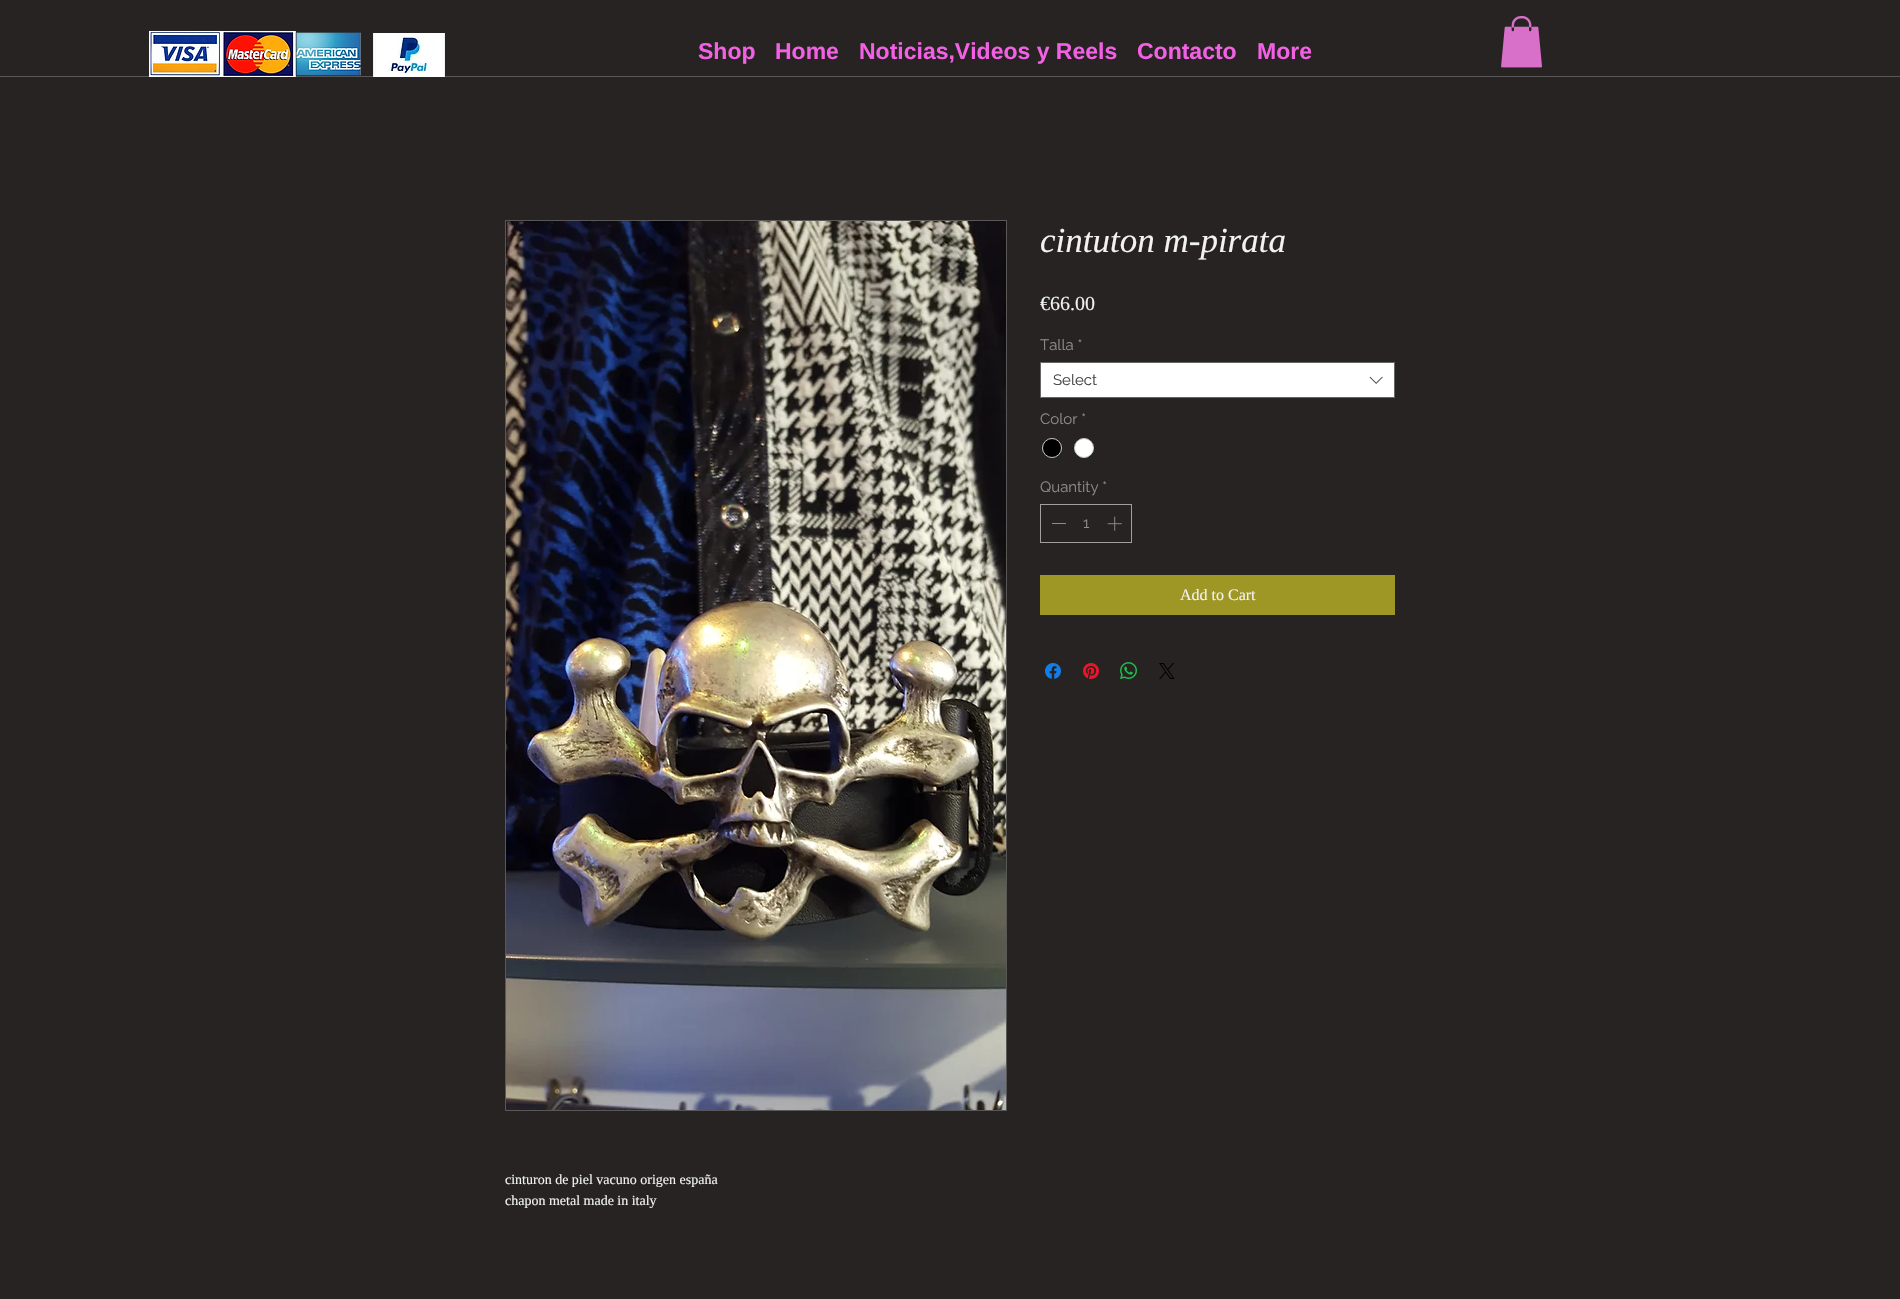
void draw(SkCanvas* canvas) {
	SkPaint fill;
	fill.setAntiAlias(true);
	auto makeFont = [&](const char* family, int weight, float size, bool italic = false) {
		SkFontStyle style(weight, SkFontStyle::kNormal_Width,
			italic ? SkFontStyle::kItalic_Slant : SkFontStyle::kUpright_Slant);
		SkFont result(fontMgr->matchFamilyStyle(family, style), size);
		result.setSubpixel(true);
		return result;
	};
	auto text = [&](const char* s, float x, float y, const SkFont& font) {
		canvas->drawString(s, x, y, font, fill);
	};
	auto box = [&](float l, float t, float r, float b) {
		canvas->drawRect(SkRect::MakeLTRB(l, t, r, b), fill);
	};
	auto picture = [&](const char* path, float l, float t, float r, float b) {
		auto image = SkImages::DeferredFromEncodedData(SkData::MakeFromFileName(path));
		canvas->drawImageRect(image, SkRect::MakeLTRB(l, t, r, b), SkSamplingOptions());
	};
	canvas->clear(0xFF272323);
	fill.setColor(0xFF5A5757);
	box(0, 76, 1900, 77);
	picture("image0.png", 149, 31, 361, 77);
	picture("image1.png", 373, 33, 445, 77);
	picture("image2.png", 1501, 16, 1542, 68);
	fill.setColor(0xFFFFFFFF);
	canvas->drawRect(SkRect::MakeLTRB(1040.5f, 362.5f, 1394.5f, 397.5f), fill);
	fill.setStyle(SkPaint::kStroke_Style);
	fill.setStrokeWidth(1);
	fill.setColor(0xFF666666);
	canvas->drawRect(SkRect::MakeLTRB(1040.5f, 362.5f, 1394.5f, 397.5f), fill);
	picture("image3.png", 1369, 376, 1383, 384);
	fill.setStyle(SkPaint::kFill_Style);
	fill.setColor(0xFF000000);
	canvas->drawCircle(1052, 448, 9.5f, fill);
	fill.setStyle(SkPaint::kStroke_Style);
	fill.setColor(0xFFC9C9C9);
	canvas->drawCircle(1052, 448, 9.5f, fill);
	fill.setStyle(SkPaint::kFill_Style);
	fill.setColor(0xFFFFFFFF);
	canvas->drawCircle(1084, 448, 9.5f, fill);
	fill.setStyle(SkPaint::kStroke_Style);
	fill.setColor(0xFFC9C9C9);
	canvas->drawCircle(1084, 448, 9.5f, fill);
	fill.setColor(0xFFA19F9F);
	canvas->drawRect(SkRect::MakeLTRB(1040.5f, 504.5f, 1131.5f, 542.5f), fill);
	fill.setStyle(SkPaint::kFill_Style);
	fill.setColor(0xFF8D8B8B);
	box(1052, 523, 1066, 524);
	picture("image4.png", 1107, 516, 1122, 531);
	fill.setColor(0xFF9E9625);
	box(1040, 575, 1395, 615);
	picture("image5.png", 1045, 663, 1061, 679);
	picture("image6.png", 1083, 663, 1099, 679);
	picture("image7.png", 1120, 662, 1137, 679);
	picture("image8.png", 1159, 663, 1175, 679);
	fill.setStyle(SkPaint::kStroke_Style);
	fill.setColor(0xFF5A5757);
	canvas->drawRect(SkRect::MakeLTRB(505.5f, 220.5f, 1006.5f, 1110.5f), fill);
	picture("image9.png", 506, 221, 1006, 1110);
	auto font1 = makeFont("Liberation Sans", 700, 23);
	fill.setStyle(SkPaint::kFill_Style);
	fill.setColor(0xFFF261E4);
	text("Shop", 698, 59, font1);
	text("Home", 775, 59, font1);
	text("Noticias,Videos y Reels", 859, 59, font1);
	text("Contacto", 1137, 59, font1);
	text("More", 1257, 59, font1);
	auto font2 = makeFont("Liberation Serif", 400, 35, true);
	fill.setColor(0xFFF2F2F2);
	text("cintuton m-pirata", 1040, 252, font2);
	auto font3 = makeFont("Liberation Serif", 400, 20);
	text("€66.00", 1040, 310, font3);
	auto font4 = makeFont("Raleway", 400, 15);
	fill.setColor(0xFF8D8B8B);
	text("Talla *", 1040, 350, font4);
	fill.setColor(0xFF444444);
	text("Select", 1053, 385, font4);
	fill.setColor(0xFF8D8B8B);
	text("Color *", 1040, 424, font4);
	text("Quantity *", 1040, 492, font4);
	text("1", 1083, 528, font4);
	auto font5 = makeFont("Liberation Serif", 400, 16);
	fill.setColor(0xFFF2F2F2);
	text("Add to Cart", 1180, 600, font5);
	auto font6 = makeFont("Liberation Serif", 400, 14);
	text("cinturon de piel vacuno origen españa", 505, 1184, font6);
	text("chapon metal made in italy", 505, 1205, font6);
}
